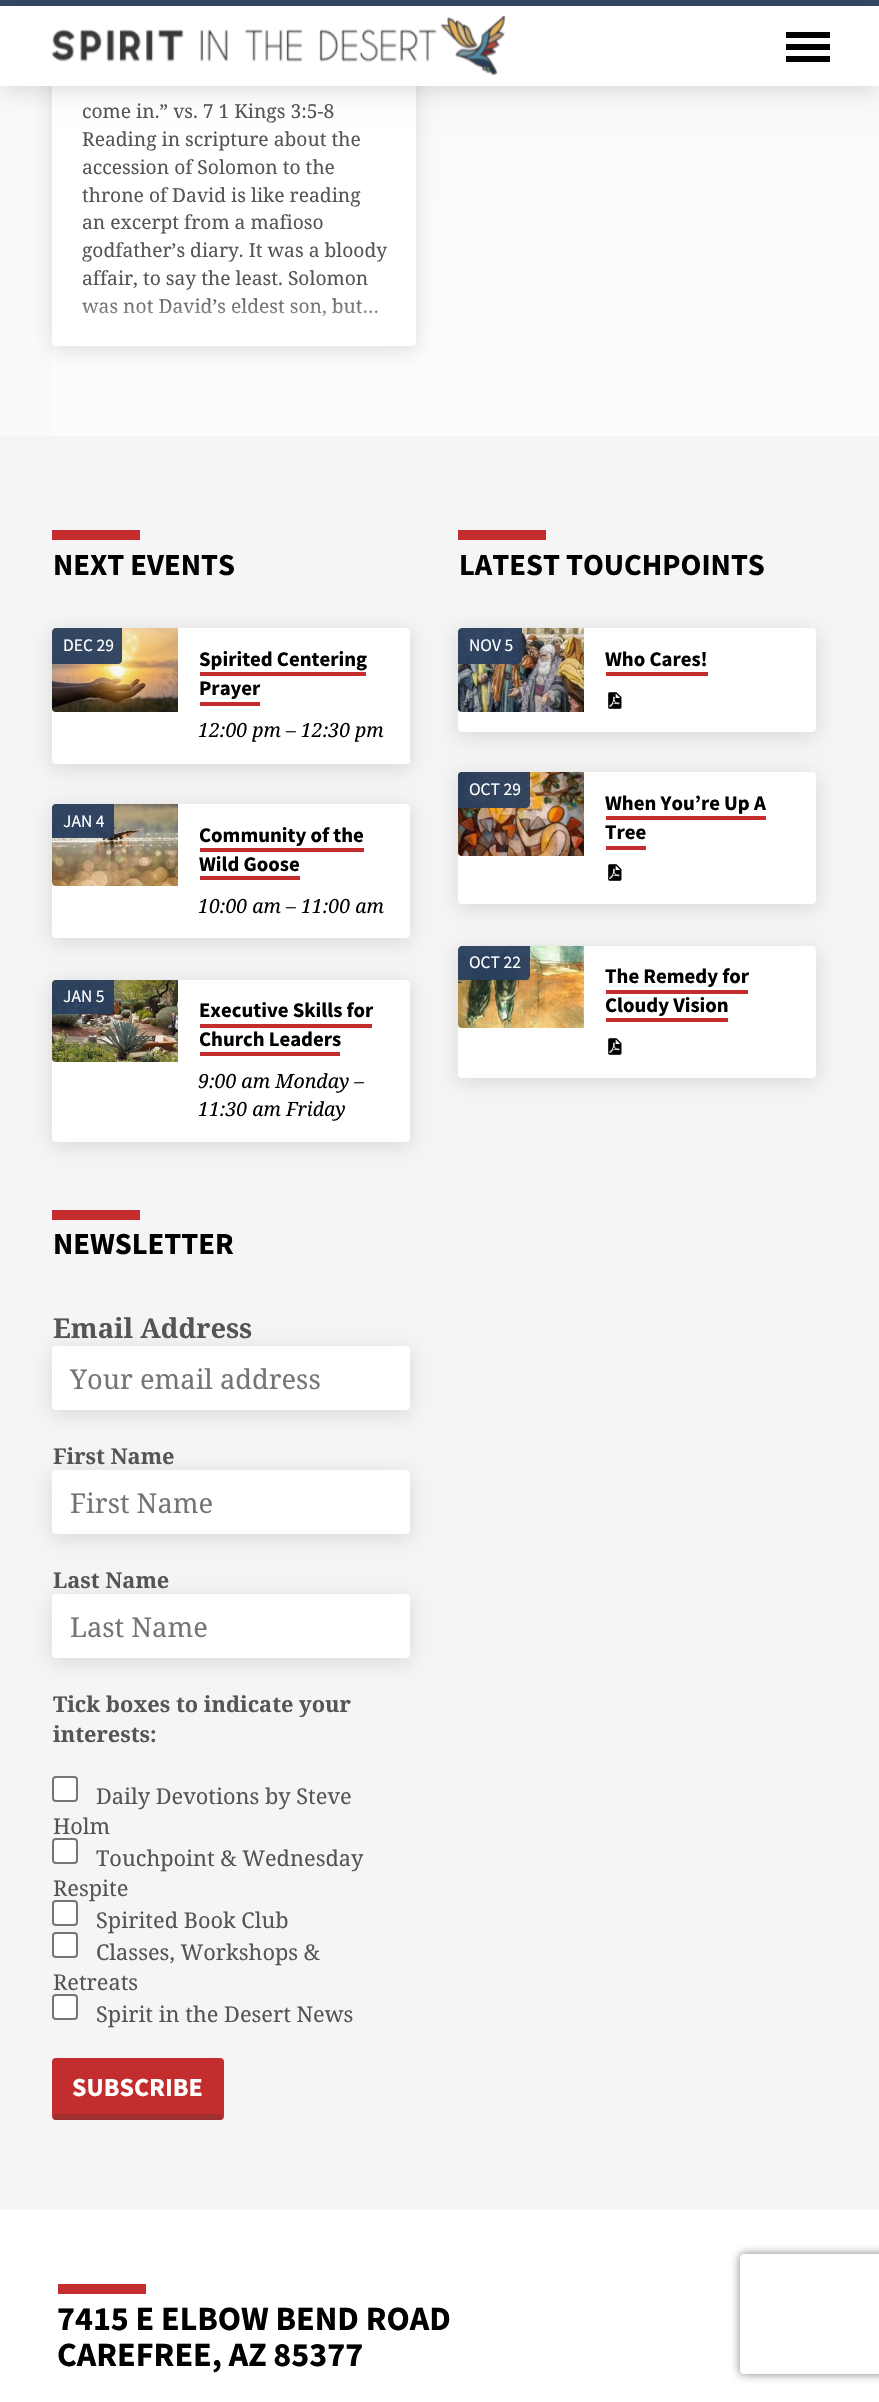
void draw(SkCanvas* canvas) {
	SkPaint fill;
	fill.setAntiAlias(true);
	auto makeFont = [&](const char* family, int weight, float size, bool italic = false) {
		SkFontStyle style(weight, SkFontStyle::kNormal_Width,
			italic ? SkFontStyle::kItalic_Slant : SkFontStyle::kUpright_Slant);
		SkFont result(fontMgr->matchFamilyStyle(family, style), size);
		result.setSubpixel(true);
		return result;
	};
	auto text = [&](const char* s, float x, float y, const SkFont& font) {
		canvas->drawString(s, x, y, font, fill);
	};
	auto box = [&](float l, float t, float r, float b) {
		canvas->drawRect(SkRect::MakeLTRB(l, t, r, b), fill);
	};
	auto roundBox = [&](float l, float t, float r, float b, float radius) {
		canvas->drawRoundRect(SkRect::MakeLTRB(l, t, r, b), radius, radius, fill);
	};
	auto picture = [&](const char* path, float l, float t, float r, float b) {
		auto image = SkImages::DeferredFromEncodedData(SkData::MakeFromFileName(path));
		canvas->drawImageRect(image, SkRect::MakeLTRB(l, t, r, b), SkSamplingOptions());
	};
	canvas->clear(0xFFFFFFFF);
	fill.setColor(0xFFFAFAFA);
	box(0, 0, 52, 436);
	{
		const SkColor colors[] = {0xFFFCFCFC, 0xFFF9F9F9};
		const float stops[] = {0.27f, 0.55f};
		const SkPoint ends[] = {{492, 436}, {492, -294}};
		fill.setShader(SkGradientShader::MakeLinear(ends, colors, stops, 2, SkTileMode::kClamp));
		fill.setAlpha(255);
	}
	box(52, 0, 879, 436);
	fill.setShader(nullptr);
	fill.setColor(0x1F000000);
	fill.setMaskFilter(SkMaskFilter::MakeBlur(kNormal_SkBlurStyle, 10));
	canvas->drawRoundRect(SkRect::MakeLTRB(52, -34, 416, 350), 4, 4, fill);
	fill.setMaskFilter(nullptr);
	fill.setColor(0xFFFFFFFF);
	roundBox(52, -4, 416, 346, 4);
	fill.setColor(0xF2293F5F);
	box(0, 0, 879, 6);
	canvas->save();
	canvas->clipPath(SkPathBuilder(SkPathFillType::kEvenOdd).moveTo(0, 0).lineTo(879, 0).lineTo(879, 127).lineTo(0, 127).close().moveTo(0, 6).lineTo(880, 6).lineTo(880, 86).lineTo(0, 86).close().detach(), true);
	fill.setColor(0x24000000);
	fill.setMaskFilter(SkMaskFilter::MakeBlur(kNormal_SkBlurStyle, 12));
	canvas->drawRect(SkRect::MakeLTRB(0, 10, 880, 90), fill);
	fill.setMaskFilter(nullptr);
	canvas->restore();
	fill.setColor(0xF2FFFFFF);
	box(0, 6, 879, 86);
	picture("image0.png", 52, 16, 506, 76);
	fill.setColor(0xFF000000);
	box(786, 32, 830, 38);
	box(786, 44, 830, 50);
	box(786, 56, 830, 62);
	fill.setColor(0xFFF5F5F5);
	box(0, 436, 879, 2210);
	fill.setColor(0xFFC42D2D);
	box(52, 530, 140, 540);
	fill.setColor(0x1F000000);
	fill.setMaskFilter(SkMaskFilter::MakeBlur(kNormal_SkBlurStyle, 10));
	canvas->drawRoundRect(SkRect::MakeLTRB(52, 632, 410, 768), 4, 4, fill);
	fill.setMaskFilter(nullptr);
	fill.setColor(0xFFFFFFFF);
	roundBox(52, 628, 410, 764, 4);
	picture("image1.png", 52, 628, 178, 712);
	fill.setColor(0xF2293F5F);
	canvas->drawPath(SkPathBuilder().moveTo(56, 628).lineTo(122, 628).lineTo(122, 660).cubicTo(122, 662, 120, 664, 118, 664).lineTo(52, 664).lineTo(52, 632).cubicTo(52, 630, 54, 628, 56, 628).close().detach(), fill);
	fill.setColor(0xFFC42D2D);
	box(200, 672, 366, 676);
	box(200, 702, 260, 706);
	fill.setColor(0x1F000000);
	fill.setMaskFilter(SkMaskFilter::MakeBlur(kNormal_SkBlurStyle, 10));
	canvas->drawRoundRect(SkRect::MakeLTRB(52, 808, 410, 942), 4, 4, fill);
	fill.setMaskFilter(nullptr);
	fill.setColor(0xFFFFFFFF);
	roundBox(52, 804, 410, 938, 4);
	picture("image2.png", 52, 804, 178, 886);
	fill.setColor(0xF2293F5F);
	canvas->drawPath(SkPathBuilder().moveTo(56, 804).lineTo(114, 804).lineTo(114, 834).cubicTo(114, 836, 112, 838, 110, 838).lineTo(52, 838).lineTo(52, 808).cubicTo(52, 806, 54, 804, 56, 804).close().detach(), fill);
	fill.setColor(0xFFC42D2D);
	box(200, 848, 364, 852);
	box(200, 876, 300, 880);
	fill.setColor(0x1F000000);
	fill.setMaskFilter(SkMaskFilter::MakeBlur(kNormal_SkBlurStyle, 10));
	canvas->drawRoundRect(SkRect::MakeLTRB(52, 984, 410, 1146), 4, 4, fill);
	fill.setMaskFilter(nullptr);
	fill.setColor(0xFFFFFFFF);
	roundBox(52, 980, 410, 1142, 4);
	picture("image3.png", 52, 980, 178, 1062);
	fill.setColor(0xF2293F5F);
	canvas->drawPath(SkPathBuilder().moveTo(56, 980).lineTo(114, 980).lineTo(114, 1010).cubicTo(114, 1012, 112, 1014, 110, 1014).lineTo(52, 1014).lineTo(52, 984).cubicTo(52, 982, 54, 980, 56, 980).close().detach(), fill);
	fill.setColor(0xFFC42D2D);
	box(200, 1024, 372, 1028);
	box(200, 1052, 340, 1056);
	box(458, 530, 546, 540);
	fill.setColor(0x1F000000);
	fill.setMaskFilter(SkMaskFilter::MakeBlur(kNormal_SkBlurStyle, 10));
	canvas->drawRoundRect(SkRect::MakeLTRB(458, 632, 816, 736), 4, 4, fill);
	fill.setMaskFilter(nullptr);
	fill.setColor(0xFFFFFFFF);
	roundBox(458, 628, 816, 732, 4);
	picture("image4.png", 458, 628, 584, 712);
	fill.setColor(0xF2293F5F);
	canvas->drawPath(SkPathBuilder().moveTo(462, 628).lineTo(522, 628).lineTo(522, 660).cubicTo(522, 662, 520, 664, 518, 664).lineTo(458, 664).lineTo(458, 632).cubicTo(458, 630, 460, 628, 462, 628).close().detach(), fill);
	fill.setColor(0xFFC42D2D);
	box(606, 672, 708, 676);
	picture("image5.png", 608, 692, 622, 709);
	fill.setColor(0x1F000000);
	fill.setMaskFilter(SkMaskFilter::MakeBlur(kNormal_SkBlurStyle, 10));
	canvas->drawRoundRect(SkRect::MakeLTRB(458, 776, 816, 908), 4, 4, fill);
	fill.setMaskFilter(nullptr);
	fill.setColor(0xFFFFFFFF);
	roundBox(458, 772, 816, 904, 4);
	picture("image6.png", 458, 772, 584, 856);
	fill.setColor(0xF2293F5F);
	canvas->drawPath(SkPathBuilder().moveTo(462, 772).lineTo(530, 772).lineTo(530, 804).cubicTo(530, 806, 528, 808, 526, 808).lineTo(458, 808).lineTo(458, 776).cubicTo(458, 774, 460, 772, 462, 772).close().detach(), fill);
	fill.setColor(0xFFC42D2D);
	box(606, 816, 766, 820);
	box(606, 846, 646, 850);
	picture("image5.png", 608, 864, 622, 881);
	fill.setColor(0x1F000000);
	fill.setMaskFilter(SkMaskFilter::MakeBlur(kNormal_SkBlurStyle, 10));
	canvas->drawRoundRect(SkRect::MakeLTRB(458, 950, 816, 1082), 4, 4, fill);
	fill.setMaskFilter(nullptr);
	fill.setColor(0xFFFFFFFF);
	roundBox(458, 946, 816, 1078, 4);
	picture("image7.png", 458, 946, 584, 1028);
	fill.setColor(0xF2293F5F);
	canvas->drawPath(SkPathBuilder().moveTo(462, 946).lineTo(530, 946).lineTo(530, 976).cubicTo(530, 978, 528, 980, 526, 980).lineTo(458, 980).lineTo(458, 950).cubicTo(458, 948, 460, 946, 462, 946).close().detach(), fill);
	fill.setColor(0xFFC42D2D);
	box(606, 990, 748, 994);
	box(606, 1018, 728, 1022);
	picture("image5.png", 608, 1038, 622, 1055);
	box(52, 1210, 140, 1220);
	fill.setColor(0x1F000000);
	fill.setMaskFilter(SkMaskFilter::MakeBlur(kNormal_SkBlurStyle, 10));
	canvas->drawRoundRect(SkRect::MakeLTRB(52, 1350, 410, 1414), 4, 4, fill);
	fill.setMaskFilter(nullptr);
	fill.setColor(0xFFFFFFFF);
	roundBox(52, 1346, 410, 1410, 4);
	fill.setColor(0x1F000000);
	fill.setMaskFilter(SkMaskFilter::MakeBlur(kNormal_SkBlurStyle, 10));
	canvas->drawRoundRect(SkRect::MakeLTRB(52, 1474, 410, 1538), 4, 4, fill);
	fill.setMaskFilter(nullptr);
	fill.setColor(0xFFFFFFFF);
	roundBox(52, 1470, 410, 1534, 4);
	fill.setColor(0x1F000000);
	fill.setMaskFilter(SkMaskFilter::MakeBlur(kNormal_SkBlurStyle, 10));
	canvas->drawRoundRect(SkRect::MakeLTRB(52, 1598, 410, 1662), 4, 4, fill);
	fill.setMaskFilter(nullptr);
	fill.setColor(0xFFFFFFFF);
	roundBox(52, 1594, 410, 1658, 4);
	canvas->drawRoundRect(SkRect::MakeLTRB(53, 1777, 77, 1801), 3, 3, fill);
	fill.setStyle(SkPaint::kStroke_Style);
	fill.setStrokeWidth(2);
	fill.setColor(0xFF767676);
	canvas->drawRoundRect(SkRect::MakeLTRB(53, 1777, 77, 1801), 3, 3, fill);
	fill.setStyle(SkPaint::kFill_Style);
	fill.setColor(0xFFFFFFFF);
	canvas->drawRoundRect(SkRect::MakeLTRB(53, 1839, 77, 1863), 3, 3, fill);
	fill.setStyle(SkPaint::kStroke_Style);
	fill.setColor(0xFF767676);
	canvas->drawRoundRect(SkRect::MakeLTRB(53, 1839, 77, 1863), 3, 3, fill);
	fill.setStyle(SkPaint::kFill_Style);
	fill.setColor(0xFFFFFFFF);
	canvas->drawRoundRect(SkRect::MakeLTRB(53, 1933, 77, 1957), 3, 3, fill);
	fill.setStyle(SkPaint::kStroke_Style);
	fill.setColor(0xFF767676);
	canvas->drawRoundRect(SkRect::MakeLTRB(53, 1933, 77, 1957), 3, 3, fill);
	fill.setStyle(SkPaint::kFill_Style);
	fill.setColor(0xFFFFFFFF);
	canvas->drawRoundRect(SkRect::MakeLTRB(53, 1995, 77, 2019), 3, 3, fill);
	fill.setStyle(SkPaint::kStroke_Style);
	fill.setColor(0xFF767676);
	canvas->drawRoundRect(SkRect::MakeLTRB(53, 1995, 77, 2019), 3, 3, fill);
	fill.setStyle(SkPaint::kFill_Style);
	fill.setColor(0xFFC42D2D);
	roundBox(52, 2058, 224, 2120, 4);
	fill.setColor(0x40323232);
	box(54, 2114, 222, 2120);
	fill.setColor(0xFFC42D2D);
	box(58, 2284, 146, 2294);
	canvas->save();
	canvas->clipPath(SkPathBuilder(SkPathFillType::kEvenOdd).moveTo(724, 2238).lineTo(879, 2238).lineTo(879, 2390).lineTo(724, 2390).close().moveTo(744, 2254).lineTo(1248, 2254).cubicTo(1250, 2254, 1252, 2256, 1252, 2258).lineTo(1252, 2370).cubicTo(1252, 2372, 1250, 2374, 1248, 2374).lineTo(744, 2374).cubicTo(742, 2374, 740, 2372, 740, 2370).lineTo(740, 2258).cubicTo(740, 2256, 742, 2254, 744, 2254).close().detach(), true);
	fill.setColor(0xFF808080);
	fill.setMaskFilter(SkMaskFilter::MakeBlur(kNormal_SkBlurStyle, 5));
	canvas->drawRoundRect(SkRect::MakeLTRB(740, 2254, 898, 2374), 4, 4, fill);
	fill.setMaskFilter(nullptr);
	canvas->restore();
	auto font1 = makeFont("Noto Serif", 400, 19.25f);
	fill.setColor(0xFF555555);
	text("come in.” vs. 7 1 Kings 3:5-8", 82, 118, font1);
	text("Reading in scripture about the", 82, 146, font1);
	text("accession of Solomon to the", 82, 174, font1);
	text("throne of David is like reading", 82, 202, font1);
	text("an excerpt from a mafioso", 82, 229, font1);
	text("godfather’s diary. It was a bloody", 82, 257, font1);
	text("affair, to say the least. Solomon", 82, 285, font1);
	text("was not David’s eldest son, but…", 82, 313, font1);
	{
		const SkColor colors[] = {0x00FFFFFF, 0xE6FFFFFF};
		const float stops[] = {0, 1};
		const SkPoint ends[] = {{234, 296}, {234, 346}};
		fill.setShader(SkGradientShader::MakeLinear(ends, colors, stops, 2, SkTileMode::kClamp));
		fill.setAlpha(255);
	}
	canvas->drawPath(SkPathBuilder().moveTo(52, 296).lineTo(416, 296).lineTo(416, 342).cubicTo(416, 344, 414, 346, 412, 346).lineTo(56, 346).cubicTo(54, 346, 52, 344, 52, 342).close().detach(), fill);
	auto font2 = makeFont("Source Sans Pro", 700, 30.5f);
	fill.setShader(nullptr);
	fill.setColor(0xFF000000);
	text("NEXT EVENTS", 53, 575, font2);
	auto font3 = makeFont("Source Sans Pro", 400, 17.5f);
	fill.setColor(0xFFFFFFFF);
	text("DEC 29", 63, 651, font3);
	auto font4 = makeFont("Source Sans Pro", 700, 20.75f);
	fill.setColor(0xFF000000);
	text("Spirited Centering", 199, 666, font4);
	text("Prayer", 199, 695, font4);
	auto font5 = makeFont("Noto Serif", 400, 19.5f, true);
	text("12:00 pm – 12:30 pm", 198, 737, font5);
	fill.setColor(0xFFFFFFFF);
	text("JAN 4", 63, 827, font3);
	fill.setColor(0xFF000000);
	text("Community of the", 199, 842, font4);
	text("Wild Goose", 199, 871, font4);
	text("10:00 am – 11:00 am", 198, 913, font5);
	fill.setColor(0xFFFFFFFF);
	text("JAN 5", 63, 1002, font3);
	fill.setColor(0xFF000000);
	text("Executive Skills for", 199, 1017, font4);
	text("Church Leaders", 199, 1046, font4);
	text("9:00 am Monday –", 198, 1088, font5);
	text("11:30 am Friday", 198, 1116, font5);
	text("LATEST TOUCHPOINTS", 459, 575, font2);
	fill.setColor(0xFFFFFFFF);
	text("NOV 5", 469, 651, font3);
	fill.setColor(0xFF000000);
	text("Who Cares!", 605, 666, font4);
	fill.setColor(0xFFFFFFFF);
	text("OCT 29", 469, 795, font3);
	fill.setColor(0xFF000000);
	text("When You’re Up A", 605, 810, font4);
	text("Tree", 605, 839, font4);
	fill.setColor(0xFFFFFFFF);
	text("OCT 22", 469, 968, font3);
	fill.setColor(0xFF000000);
	text("The Remedy for", 605, 983, font4);
	text("Cloudy Vision", 605, 1012, font4);
	text("NEWSLETTER", 53, 1254, font2);
	auto font6 = makeFont("Noto Serif", 700, 27.25f);
	fill.setColor(0xFF555555);
	text("Email Address", 53, 1338, font6);
	auto font7 = makeFont("Noto Serif", 400, 27.25f);
	fill.setColor(0xFF757575);
	text("Your email address", 70, 1389, font7);
	auto font8 = makeFont("Noto Serif", 700, 21.75f);
	fill.setColor(0xFF555555);
	text("First Name", 53, 1464, font8);
	fill.setColor(0xFF757575);
	text("First Name", 70, 1513, font7);
	fill.setColor(0xFF555555);
	text("Last Name", 53, 1588, font8);
	fill.setColor(0xFF757575);
	text("Last Name", 70, 1637, font7);
	fill.setColor(0xFF555555);
	text("Tick boxes to indicate your", 53, 1712, font8);
	text("interests:", 53, 1742, font8);
	auto font9 = makeFont("Noto Serif", 400, 21.75f);
	text("Daily Devotions by Steve", 96, 1804, font9);
	text("Holm", 53, 1834, font9);
	text("Touchpoint & Wednesday", 96, 1866, font9);
	text("Respite", 53, 1896, font9);
	fill.setColor(0xFFFFFFFF);
	canvas->drawRoundRect(SkRect::MakeLTRB(53, 1901, 77, 1925), 3, 3, fill);
	fill.setStyle(SkPaint::kStroke_Style);
	fill.setColor(0xFF767676);
	canvas->drawRoundRect(SkRect::MakeLTRB(53, 1901, 77, 1925), 3, 3, fill);
	fill.setStyle(SkPaint::kFill_Style);
	fill.setColor(0xFF555555);
	text("Spirited Book Club", 96, 1928, font9);
	text("Classes, Workshops &", 96, 1960, font9);
	text("Retreats", 53, 1990, font9);
	text("Spirit in the Desert News", 96, 2022, font9);
	auto font10 = makeFont("Source Sans Pro", 700, 26);
	fill.setColor(0xFFFFFFFF);
	text("SUBSCRIBE", 72, 2096, font10);
	auto font11 = makeFont("Source Sans Pro", 700, 34);
	fill.setColor(0xFF000000);
	text("7415 E ELBOW BEND ROAD", 57, 2330, font11);
	text("CAREFREE, AZ 85377", 57, 2366, font11);
}
